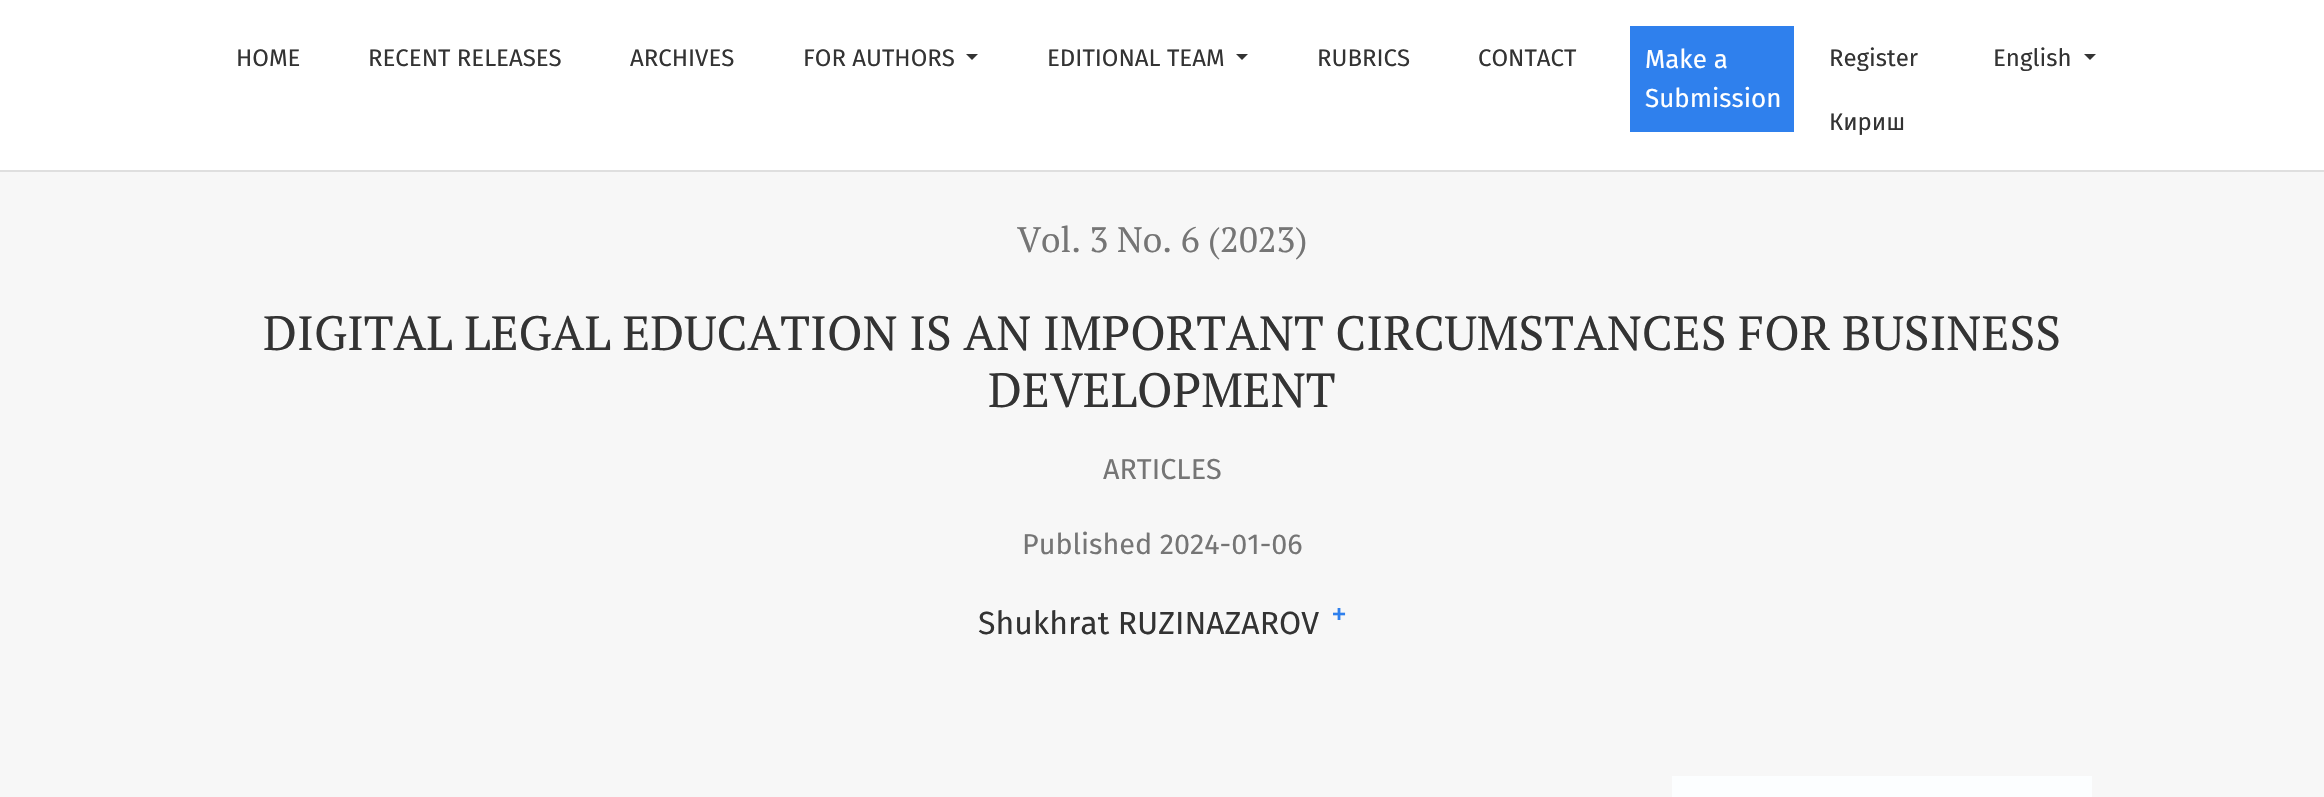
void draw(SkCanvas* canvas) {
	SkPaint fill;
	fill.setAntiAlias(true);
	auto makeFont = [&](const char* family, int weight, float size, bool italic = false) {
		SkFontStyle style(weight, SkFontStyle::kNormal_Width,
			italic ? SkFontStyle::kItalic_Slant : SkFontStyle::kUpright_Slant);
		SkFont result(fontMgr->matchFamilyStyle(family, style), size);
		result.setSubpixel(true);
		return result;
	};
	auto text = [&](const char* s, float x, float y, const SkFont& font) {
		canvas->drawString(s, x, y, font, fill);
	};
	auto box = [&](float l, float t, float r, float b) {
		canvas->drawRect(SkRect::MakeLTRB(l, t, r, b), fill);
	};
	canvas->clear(0xFFF7F7F7);
	fill.setColor(0xFFFFFFFF);
	box(0, 0, 2324, 170);
	fill.setColor(0xFFDFDFDF);
	box(0, 170, 2324, 172);
	fill.setColor(0xFF333333);
	canvas->drawPath(SkPathBuilder().moveTo(966, 54).lineTo(978, 54).lineTo(972, 60).close().detach(), fill);
	canvas->drawPath(SkPathBuilder().moveTo(1236, 54).lineTo(1248, 54).lineTo(1242, 60).close().detach(), fill);
	fill.setColor(0xFF2F80ED);
	box(1630, 26, 1794, 132);
	fill.setColor(0xFF333333);
	canvas->drawPath(SkPathBuilder().moveTo(2084, 54).lineTo(2096, 54).lineTo(2090, 60).close().detach(), fill);
	fill.setColor(0xFFFCFEFF);
	box(1672, 776, 2092, 797);
	auto font1 = makeFont("Fira Sans", 400, 24);
	fill.setColor(0xFF333333);
	text("HOME", 236, 66, font1);
	text("RECENT RELEASES", 368, 66, font1);
	text("ARCHIVES", 630, 66, font1);
	text("FOR AUTHORS", 803, 66, font1);
	text("EDITIONAL TEAM", 1047, 66, font1);
	text("RUBRICS", 1317, 66, font1);
	text("CONTACT", 1478, 66, font1);
	auto font2 = makeFont("Fira Sans", 400, 26);
	fill.setColor(0xFFFFFFFF);
	text("Make a", 1645, 68, font2);
	text("Submission", 1645, 107, font2);
	fill.setColor(0xFF333333);
	text("Register", 1829, 66, font1);
	text("Кириш", 1829, 130, font1);
	text("English", 1993, 66, font1);
	auto font3 = makeFont("PT Serif", 400, 35.25f);
	fill.setColor(0xFF757575);
	text("Vol. 3 No. 6 (2023)", 1017, 252, font3);
	auto font4 = makeFont("PT Serif", 400, 48);
	fill.setColor(0xFF333333);
	text("DIGITAL LEGAL EDUCATION IS AN IMPORTANT CIRCUMSTANCES FOR BUSINESS", 263, 350, font4);
	text("DEVELOPMENT", 988, 407, font4);
	auto font5 = makeFont("Fira Sans", 400, 28.75f);
	fill.setColor(0xFF757575);
	text("ARTICLES", 1103, 479, font5);
	text("Published 2024-01-06", 1022, 554, font5);
	auto font6 = makeFont("Fira Sans", 400, 32);
	fill.setColor(0xFF333333);
	text("Shukhrat RUZINAZAROV", 978, 634, font6);
	auto font7 = makeFont("Liberation Sans", 700, 24);
	fill.setColor(0xFF2F80ED);
	text("+", 1332, 622, font7);
}
